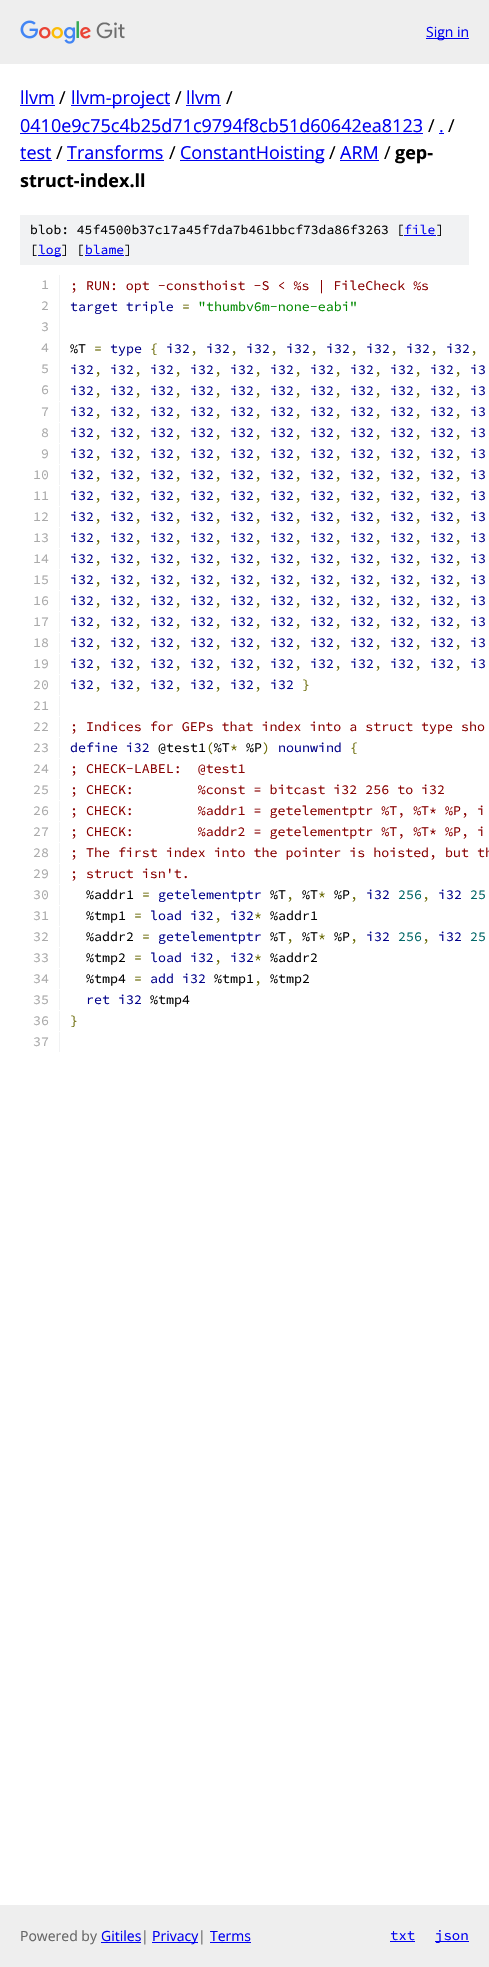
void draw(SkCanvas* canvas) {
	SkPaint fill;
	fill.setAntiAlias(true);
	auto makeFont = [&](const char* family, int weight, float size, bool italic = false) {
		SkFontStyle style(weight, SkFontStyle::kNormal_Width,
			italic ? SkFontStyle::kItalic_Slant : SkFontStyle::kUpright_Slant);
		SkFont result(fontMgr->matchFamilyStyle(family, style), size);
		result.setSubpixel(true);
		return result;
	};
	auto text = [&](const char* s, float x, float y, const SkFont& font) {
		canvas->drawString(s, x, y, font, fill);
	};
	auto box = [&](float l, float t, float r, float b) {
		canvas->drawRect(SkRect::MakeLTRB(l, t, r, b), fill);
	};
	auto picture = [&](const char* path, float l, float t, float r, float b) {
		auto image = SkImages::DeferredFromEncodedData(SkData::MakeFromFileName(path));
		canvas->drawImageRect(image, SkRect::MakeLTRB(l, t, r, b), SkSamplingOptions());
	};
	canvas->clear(0xFFFFFFFF);
	fill.setColor(0xFFEEEEEE);
	box(0, 0, 489, 64);
	picture("image0.png", 20, 20, 125, 44);
	fill.setColor(0xFF0000EE);
	box(426, 38, 469, 39);
	box(20, 105, 55, 106);
	box(71, 105, 170, 106);
	box(186, 105, 221, 106);
	box(20, 133, 423, 134);
	box(439, 133, 444, 134);
	box(20, 160, 52, 161);
	box(67, 160, 164, 161);
	box(180, 160, 324, 161);
	box(340, 160, 379, 161);
	fill.setColor(0xFFF1F2F3);
	box(20, 215, 469, 265);
	fill.setColor(0xFF0000EE);
	box(404, 235, 436, 236);
	box(38, 255, 61, 256);
	box(85, 255, 124, 256);
	fill.setColor(0xFFF1F2F3);
	box(59, 275, 60, 401);
	box(59, 402, 60, 422);
	box(59, 423, 60, 443);
	box(59, 444, 60, 464);
	box(59, 465, 60, 485);
	box(59, 486, 60, 506);
	box(59, 507, 60, 527);
	box(59, 528, 60, 548);
	box(59, 549, 60, 569);
	box(59, 570, 60, 590);
	box(59, 591, 60, 611);
	box(59, 612, 60, 632);
	box(59, 633, 60, 653);
	box(59, 654, 60, 674);
	box(59, 675, 60, 695);
	box(59, 696, 60, 716);
	box(59, 717, 60, 737);
	box(59, 738, 60, 758);
	box(59, 759, 60, 779);
	box(59, 780, 60, 800);
	box(59, 801, 60, 821);
	box(59, 822, 60, 842);
	box(59, 843, 60, 863);
	box(59, 864, 60, 884);
	box(59, 885, 60, 905);
	box(59, 906, 60, 926);
	box(59, 927, 60, 947);
	box(59, 948, 60, 968);
	box(59, 969, 60, 989);
	box(59, 990, 60, 1010);
	box(59, 1011, 60, 1031);
	box(59, 1032, 60, 1052);
	fill.setColor(0xFFEEEEEE);
	box(0, 1905, 489, 1967);
	fill.setColor(0xFF0000EE);
	box(101, 1942, 141, 1943);
	box(152, 1942, 198, 1943);
	box(210, 1942, 251, 1943);
	box(390, 1941, 415, 1942);
	box(435, 1941, 469, 1942);
	auto font1 = makeFont("Open Sans", 400, 14);
	text("Sign in", 426, 37, font1);
	auto font2 = makeFont("Open Sans", 400, 18);
	text("llvm", 20, 104, font2);
	fill.setColor(0xFF000000);
	text("/", 59, 104, font2);
	fill.setColor(0xFF0000EE);
	text("llvm-project", 71, 104, font2);
	fill.setColor(0xFF000000);
	text("/", 175, 104, font2);
	fill.setColor(0xFF0000EE);
	text("llvm", 186, 104, font2);
	fill.setColor(0xFF000000);
	text("/", 226, 104, font2);
	fill.setColor(0xFF0000EE);
	text("0410e9c75c4b25d71c9794f8cb51d60642ea8123", 20, 132, font2);
	fill.setColor(0xFF000000);
	text("/", 428, 132, font2);
	fill.setColor(0xFF0000EE);
	text(".", 439, 132, font2);
	fill.setColor(0xFF000000);
	text("/", 448, 132, font2);
	fill.setColor(0xFF0000EE);
	text("test", 20, 159, font2);
	fill.setColor(0xFF000000);
	text("/", 56, 159, font2);
	fill.setColor(0xFF0000EE);
	text("Transforms", 67, 159, font2);
	fill.setColor(0xFF000000);
	text("/", 169, 159, font2);
	fill.setColor(0xFF0000EE);
	text("ConstantHoisting", 180, 159, font2);
	fill.setColor(0xFF000000);
	text("/", 329, 159, font2);
	fill.setColor(0xFF0000EE);
	text("ARM", 340, 159, font2);
	fill.setColor(0xFF000000);
	text("/", 384, 159, font2);
	auto font3 = makeFont("Open Sans", 700, 18);
	text("gep-", 395, 159, font3);
	text("struct-index.ll", 20, 187, font3);
	auto font4 = makeFont("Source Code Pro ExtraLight", 200, 13);
	text("blob: 45f4500b37c17a45f7da7b461bbcf73da86f3263 [", 30, 234, font4);
	fill.setColor(0xFF0000EE);
	text("file", 404, 234, font4);
	fill.setColor(0xFF000000);
	text("]", 436, 234, font4);
	text("[", 30, 254, font4);
	fill.setColor(0xFF0000EE);
	text("log", 38, 254, font4);
	fill.setColor(0xFF000000);
	text("] [", 61, 254, font4);
	fill.setColor(0xFF0000EE);
	text("blame", 85, 254, font4);
	fill.setColor(0xFF000000);
	text("]", 124, 254, font4);
	auto font5 = makeFont("Source Code Pro ExtraLight", 200, 13.3f);
	fill.setColor(0xFFAAAAAA);
	text("1", 41, 289, font5);
	fill.setColor(0xFF880000);
	text("; RUN: opt -consthoist -S < %s | FileCheck %s", 70, 290, font5);
	fill.setColor(0xFFAAAAAA);
	text("2", 41, 310, font5);
	fill.setColor(0xFF000088);
	text("target triple", 70, 311, font5);
	fill.setColor(0xFF666600);
	text("=", 182, 311, font5);
	fill.setColor(0xFF008800);
	text("\"thumbv6m-none-eabi\"", 198, 311, font5);
	fill.setColor(0xFFAAAAAA);
	text("3", 41, 331, font5);
	text("4", 41, 352, font5);
	fill.setColor(0xFF000000);
	text("%T", 70, 353, font5);
	fill.setColor(0xFF666600);
	text("=", 94, 353, font5);
	fill.setColor(0xFF000088);
	text("type", 110, 353, font5);
	fill.setColor(0xFF666600);
	text("{", 150, 353, font5);
	fill.setColor(0xFF000088);
	text("i32", 166, 353, font5);
	text("i32", 206, 353, font5);
	text("i32", 246, 353, font5);
	text("i32", 286, 353, font5);
	text("i32", 326, 353, font5);
	text("i32", 366, 353, font5);
	text("i32", 406, 353, font5);
	text("i32", 446, 353, font5);
	fill.setColor(0xFF666600);
	text(",", 190, 353, font5);
	text(",", 230, 353, font5);
	text(",", 270, 353, font5);
	text(",", 310, 353, font5);
	text(",", 350, 353, font5);
	text(",", 390, 353, font5);
	text(",", 430, 353, font5);
	text(",", 470, 353, font5);
	fill.setColor(0xFFAAAAAA);
	text("5", 41, 373, font5);
	fill.setColor(0xFF000088);
	text("i32", 70, 374, font5);
	fill.setColor(0xFF666600);
	text(",", 94, 374, font5);
	fill.setColor(0xFF000088);
	text("i32", 110, 374, font5);
	fill.setColor(0xFF666600);
	text(",", 134, 374, font5);
	fill.setColor(0xFF000088);
	text("i32", 150, 374, font5);
	fill.setColor(0xFF666600);
	text(",", 174, 374, font5);
	fill.setColor(0xFF000088);
	text("i32", 190, 374, font5);
	fill.setColor(0xFF666600);
	text(",", 214, 374, font5);
	fill.setColor(0xFF000088);
	text("i32", 230, 374, font5);
	fill.setColor(0xFF666600);
	text(",", 254, 374, font5);
	fill.setColor(0xFF000088);
	text("i32", 270, 374, font5);
	fill.setColor(0xFF666600);
	text(",", 294, 374, font5);
	fill.setColor(0xFF000088);
	text("i32", 310, 374, font5);
	fill.setColor(0xFF666600);
	text(",", 334, 374, font5);
	fill.setColor(0xFF000088);
	text("i32", 350, 374, font5);
	fill.setColor(0xFF666600);
	text(",", 374, 374, font5);
	fill.setColor(0xFF000088);
	text("i32", 390, 374, font5);
	fill.setColor(0xFF666600);
	text(",", 414, 374, font5);
	fill.setColor(0xFF000088);
	text("i32", 430, 374, font5);
	fill.setColor(0xFF666600);
	text(",", 454, 374, font5);
	fill.setColor(0xFF000088);
	text("i3", 470, 374, font5);
	fill.setColor(0xFFAAAAAA);
	text("6", 41, 394, font5);
	fill.setColor(0xFF000088);
	text("i32", 70, 395, font5);
	fill.setColor(0xFF666600);
	text(",", 94, 395, font5);
	fill.setColor(0xFF000088);
	text("i32", 110, 395, font5);
	fill.setColor(0xFF666600);
	text(",", 134, 395, font5);
	fill.setColor(0xFF000088);
	text("i32", 150, 395, font5);
	fill.setColor(0xFF666600);
	text(",", 174, 395, font5);
	fill.setColor(0xFF000088);
	text("i32", 190, 395, font5);
	fill.setColor(0xFF666600);
	text(",", 214, 395, font5);
	fill.setColor(0xFF000088);
	text("i32", 230, 395, font5);
	fill.setColor(0xFF666600);
	text(",", 254, 395, font5);
	fill.setColor(0xFF000088);
	text("i32", 270, 395, font5);
	fill.setColor(0xFF666600);
	text(",", 294, 395, font5);
	fill.setColor(0xFF000088);
	text("i32", 310, 395, font5);
	fill.setColor(0xFF666600);
	text(",", 334, 395, font5);
	fill.setColor(0xFF000088);
	text("i32", 350, 395, font5);
	fill.setColor(0xFF666600);
	text(",", 374, 395, font5);
	fill.setColor(0xFF000088);
	text("i32", 390, 395, font5);
	fill.setColor(0xFF666600);
	text(",", 414, 395, font5);
	fill.setColor(0xFF000088);
	text("i32", 430, 395, font5);
	fill.setColor(0xFF666600);
	text(",", 454, 395, font5);
	fill.setColor(0xFF000088);
	text("i3", 470, 395, font5);
	fill.setColor(0xFFAAAAAA);
	text("7", 41, 416, font5);
	fill.setColor(0xFF000088);
	text("i32", 70, 416, font5);
	fill.setColor(0xFF666600);
	text(",", 94, 416, font5);
	fill.setColor(0xFF000088);
	text("i32", 110, 416, font5);
	fill.setColor(0xFF666600);
	text(",", 134, 416, font5);
	fill.setColor(0xFF000088);
	text("i32", 150, 416, font5);
	fill.setColor(0xFF666600);
	text(",", 174, 416, font5);
	fill.setColor(0xFF000088);
	text("i32", 190, 416, font5);
	fill.setColor(0xFF666600);
	text(",", 214, 416, font5);
	fill.setColor(0xFF000088);
	text("i32", 230, 416, font5);
	fill.setColor(0xFF666600);
	text(",", 254, 416, font5);
	fill.setColor(0xFF000088);
	text("i32", 270, 416, font5);
	fill.setColor(0xFF666600);
	text(",", 294, 416, font5);
	fill.setColor(0xFF000088);
	text("i32", 310, 416, font5);
	fill.setColor(0xFF666600);
	text(",", 334, 416, font5);
	fill.setColor(0xFF000088);
	text("i32", 350, 416, font5);
	fill.setColor(0xFF666600);
	text(",", 374, 416, font5);
	fill.setColor(0xFF000088);
	text("i32", 390, 416, font5);
	fill.setColor(0xFF666600);
	text(",", 414, 416, font5);
	fill.setColor(0xFF000088);
	text("i32", 430, 416, font5);
	fill.setColor(0xFF666600);
	text(",", 454, 416, font5);
	fill.setColor(0xFF000088);
	text("i3", 470, 416, font5);
	fill.setColor(0xFFAAAAAA);
	text("8", 41, 437, font5);
	fill.setColor(0xFF000088);
	text("i32", 70, 437, font5);
	fill.setColor(0xFF666600);
	text(",", 94, 437, font5);
	fill.setColor(0xFF000088);
	text("i32", 110, 437, font5);
	fill.setColor(0xFF666600);
	text(",", 134, 437, font5);
	fill.setColor(0xFF000088);
	text("i32", 150, 437, font5);
	fill.setColor(0xFF666600);
	text(",", 174, 437, font5);
	fill.setColor(0xFF000088);
	text("i32", 190, 437, font5);
	fill.setColor(0xFF666600);
	text(",", 214, 437, font5);
	fill.setColor(0xFF000088);
	text("i32", 230, 437, font5);
	fill.setColor(0xFF666600);
	text(",", 254, 437, font5);
	fill.setColor(0xFF000088);
	text("i32", 270, 437, font5);
	fill.setColor(0xFF666600);
	text(",", 294, 437, font5);
	fill.setColor(0xFF000088);
	text("i32", 310, 437, font5);
	fill.setColor(0xFF666600);
	text(",", 334, 437, font5);
	fill.setColor(0xFF000088);
	text("i32", 350, 437, font5);
	fill.setColor(0xFF666600);
	text(",", 374, 437, font5);
	fill.setColor(0xFF000088);
	text("i32", 390, 437, font5);
	fill.setColor(0xFF666600);
	text(",", 414, 437, font5);
	fill.setColor(0xFF000088);
	text("i32", 430, 437, font5);
	fill.setColor(0xFF666600);
	text(",", 454, 437, font5);
	fill.setColor(0xFF000088);
	text("i3", 470, 437, font5);
	fill.setColor(0xFFAAAAAA);
	text("9", 41, 458, font5);
	fill.setColor(0xFF000088);
	text("i32", 70, 458, font5);
	fill.setColor(0xFF666600);
	text(",", 94, 458, font5);
	fill.setColor(0xFF000088);
	text("i32", 110, 458, font5);
	fill.setColor(0xFF666600);
	text(",", 134, 458, font5);
	fill.setColor(0xFF000088);
	text("i32", 150, 458, font5);
	fill.setColor(0xFF666600);
	text(",", 174, 458, font5);
	fill.setColor(0xFF000088);
	text("i32", 190, 458, font5);
	fill.setColor(0xFF666600);
	text(",", 214, 458, font5);
	fill.setColor(0xFF000088);
	text("i32", 230, 458, font5);
	fill.setColor(0xFF666600);
	text(",", 254, 458, font5);
	fill.setColor(0xFF000088);
	text("i32", 270, 458, font5);
	fill.setColor(0xFF666600);
	text(",", 294, 458, font5);
	fill.setColor(0xFF000088);
	text("i32", 310, 458, font5);
	fill.setColor(0xFF666600);
	text(",", 334, 458, font5);
	fill.setColor(0xFF000088);
	text("i32", 350, 458, font5);
	fill.setColor(0xFF666600);
	text(",", 374, 458, font5);
	fill.setColor(0xFF000088);
	text("i32", 390, 458, font5);
	fill.setColor(0xFF666600);
	text(",", 414, 458, font5);
	fill.setColor(0xFF000088);
	text("i32", 430, 458, font5);
	fill.setColor(0xFF666600);
	text(",", 454, 458, font5);
	fill.setColor(0xFF000088);
	text("i3", 470, 458, font5);
	fill.setColor(0xFFAAAAAA);
	text("10", 33, 479, font5);
	fill.setColor(0xFF000088);
	text("i32", 70, 479, font5);
	fill.setColor(0xFF666600);
	text(",", 94, 479, font5);
	fill.setColor(0xFF000088);
	text("i32", 110, 479, font5);
	fill.setColor(0xFF666600);
	text(",", 134, 479, font5);
	fill.setColor(0xFF000088);
	text("i32", 150, 479, font5);
	fill.setColor(0xFF666600);
	text(",", 174, 479, font5);
	fill.setColor(0xFF000088);
	text("i32", 190, 479, font5);
	fill.setColor(0xFF666600);
	text(",", 214, 479, font5);
	fill.setColor(0xFF000088);
	text("i32", 230, 479, font5);
	fill.setColor(0xFF666600);
	text(",", 254, 479, font5);
	fill.setColor(0xFF000088);
	text("i32", 270, 479, font5);
	fill.setColor(0xFF666600);
	text(",", 294, 479, font5);
	fill.setColor(0xFF000088);
	text("i32", 310, 479, font5);
	fill.setColor(0xFF666600);
	text(",", 334, 479, font5);
	fill.setColor(0xFF000088);
	text("i32", 350, 479, font5);
	fill.setColor(0xFF666600);
	text(",", 374, 479, font5);
	fill.setColor(0xFF000088);
	text("i32", 390, 479, font5);
	fill.setColor(0xFF666600);
	text(",", 414, 479, font5);
	fill.setColor(0xFF000088);
	text("i32", 430, 479, font5);
	fill.setColor(0xFF666600);
	text(",", 454, 479, font5);
	fill.setColor(0xFF000088);
	text("i3", 470, 479, font5);
	fill.setColor(0xFFAAAAAA);
	text("11", 33, 500, font5);
	fill.setColor(0xFF000088);
	text("i32", 70, 500, font5);
	fill.setColor(0xFF666600);
	text(",", 94, 500, font5);
	fill.setColor(0xFF000088);
	text("i32", 110, 500, font5);
	fill.setColor(0xFF666600);
	text(",", 134, 500, font5);
	fill.setColor(0xFF000088);
	text("i32", 150, 500, font5);
	fill.setColor(0xFF666600);
	text(",", 174, 500, font5);
	fill.setColor(0xFF000088);
	text("i32", 190, 500, font5);
	fill.setColor(0xFF666600);
	text(",", 214, 500, font5);
	fill.setColor(0xFF000088);
	text("i32", 230, 500, font5);
	fill.setColor(0xFF666600);
	text(",", 254, 500, font5);
	fill.setColor(0xFF000088);
	text("i32", 270, 500, font5);
	fill.setColor(0xFF666600);
	text(",", 294, 500, font5);
	fill.setColor(0xFF000088);
	text("i32", 310, 500, font5);
	fill.setColor(0xFF666600);
	text(",", 334, 500, font5);
	fill.setColor(0xFF000088);
	text("i32", 350, 500, font5);
	fill.setColor(0xFF666600);
	text(",", 374, 500, font5);
	fill.setColor(0xFF000088);
	text("i32", 390, 500, font5);
	fill.setColor(0xFF666600);
	text(",", 414, 500, font5);
	fill.setColor(0xFF000088);
	text("i32", 430, 500, font5);
	fill.setColor(0xFF666600);
	text(",", 454, 500, font5);
	fill.setColor(0xFF000088);
	text("i3", 470, 500, font5);
	fill.setColor(0xFFAAAAAA);
	text("12", 33, 521, font5);
	fill.setColor(0xFF000088);
	text("i32", 70, 521, font5);
	fill.setColor(0xFF666600);
	text(",", 94, 521, font5);
	fill.setColor(0xFF000088);
	text("i32", 110, 521, font5);
	fill.setColor(0xFF666600);
	text(",", 134, 521, font5);
	fill.setColor(0xFF000088);
	text("i32", 150, 521, font5);
	fill.setColor(0xFF666600);
	text(",", 174, 521, font5);
	fill.setColor(0xFF000088);
	text("i32", 190, 521, font5);
	fill.setColor(0xFF666600);
	text(",", 214, 521, font5);
	fill.setColor(0xFF000088);
	text("i32", 230, 521, font5);
	fill.setColor(0xFF666600);
	text(",", 254, 521, font5);
	fill.setColor(0xFF000088);
	text("i32", 270, 521, font5);
	fill.setColor(0xFF666600);
	text(",", 294, 521, font5);
	fill.setColor(0xFF000088);
	text("i32", 310, 521, font5);
	fill.setColor(0xFF666600);
	text(",", 334, 521, font5);
	fill.setColor(0xFF000088);
	text("i32", 350, 521, font5);
	fill.setColor(0xFF666600);
	text(",", 374, 521, font5);
	fill.setColor(0xFF000088);
	text("i32", 390, 521, font5);
	fill.setColor(0xFF666600);
	text(",", 414, 521, font5);
	fill.setColor(0xFF000088);
	text("i32", 430, 521, font5);
	fill.setColor(0xFF666600);
	text(",", 454, 521, font5);
	fill.setColor(0xFF000088);
	text("i3", 470, 521, font5);
	fill.setColor(0xFFAAAAAA);
	text("13", 33, 542, font5);
	fill.setColor(0xFF000088);
	text("i32", 70, 542, font5);
	fill.setColor(0xFF666600);
	text(",", 94, 542, font5);
	fill.setColor(0xFF000088);
	text("i32", 110, 542, font5);
	fill.setColor(0xFF666600);
	text(",", 134, 542, font5);
	fill.setColor(0xFF000088);
	text("i32", 150, 542, font5);
	fill.setColor(0xFF666600);
	text(",", 174, 542, font5);
	fill.setColor(0xFF000088);
	text("i32", 190, 542, font5);
	fill.setColor(0xFF666600);
	text(",", 214, 542, font5);
	fill.setColor(0xFF000088);
	text("i32", 230, 542, font5);
	fill.setColor(0xFF666600);
	text(",", 254, 542, font5);
	fill.setColor(0xFF000088);
	text("i32", 270, 542, font5);
	fill.setColor(0xFF666600);
	text(",", 294, 542, font5);
	fill.setColor(0xFF000088);
	text("i32", 310, 542, font5);
	fill.setColor(0xFF666600);
	text(",", 334, 542, font5);
	fill.setColor(0xFF000088);
	text("i32", 350, 542, font5);
	fill.setColor(0xFF666600);
	text(",", 374, 542, font5);
	fill.setColor(0xFF000088);
	text("i32", 390, 542, font5);
	fill.setColor(0xFF666600);
	text(",", 414, 542, font5);
	fill.setColor(0xFF000088);
	text("i32", 430, 542, font5);
	fill.setColor(0xFF666600);
	text(",", 454, 542, font5);
	fill.setColor(0xFF000088);
	text("i3", 470, 542, font5);
	fill.setColor(0xFFAAAAAA);
	text("14", 33, 563, font5);
	fill.setColor(0xFF000088);
	text("i32", 70, 563, font5);
	fill.setColor(0xFF666600);
	text(",", 94, 563, font5);
	fill.setColor(0xFF000088);
	text("i32", 110, 563, font5);
	fill.setColor(0xFF666600);
	text(",", 134, 563, font5);
	fill.setColor(0xFF000088);
	text("i32", 150, 563, font5);
	fill.setColor(0xFF666600);
	text(",", 174, 563, font5);
	fill.setColor(0xFF000088);
	text("i32", 190, 563, font5);
	fill.setColor(0xFF666600);
	text(",", 214, 563, font5);
	fill.setColor(0xFF000088);
	text("i32", 230, 563, font5);
	fill.setColor(0xFF666600);
	text(",", 254, 563, font5);
	fill.setColor(0xFF000088);
	text("i32", 270, 563, font5);
	fill.setColor(0xFF666600);
	text(",", 294, 563, font5);
	fill.setColor(0xFF000088);
	text("i32", 310, 563, font5);
	fill.setColor(0xFF666600);
	text(",", 334, 563, font5);
	fill.setColor(0xFF000088);
	text("i32", 350, 563, font5);
	fill.setColor(0xFF666600);
	text(",", 374, 563, font5);
	fill.setColor(0xFF000088);
	text("i32", 390, 563, font5);
	fill.setColor(0xFF666600);
	text(",", 414, 563, font5);
	fill.setColor(0xFF000088);
	text("i32", 430, 563, font5);
	fill.setColor(0xFF666600);
	text(",", 454, 563, font5);
	fill.setColor(0xFF000088);
	text("i3", 470, 563, font5);
	fill.setColor(0xFFAAAAAA);
	text("15", 33, 584, font5);
	fill.setColor(0xFF000088);
	text("i32", 70, 584, font5);
	fill.setColor(0xFF666600);
	text(",", 94, 584, font5);
	fill.setColor(0xFF000088);
	text("i32", 110, 584, font5);
	fill.setColor(0xFF666600);
	text(",", 134, 584, font5);
	fill.setColor(0xFF000088);
	text("i32", 150, 584, font5);
	fill.setColor(0xFF666600);
	text(",", 174, 584, font5);
	fill.setColor(0xFF000088);
	text("i32", 190, 584, font5);
	fill.setColor(0xFF666600);
	text(",", 214, 584, font5);
	fill.setColor(0xFF000088);
	text("i32", 230, 584, font5);
	fill.setColor(0xFF666600);
	text(",", 254, 584, font5);
	fill.setColor(0xFF000088);
	text("i32", 270, 584, font5);
	fill.setColor(0xFF666600);
	text(",", 294, 584, font5);
	fill.setColor(0xFF000088);
	text("i32", 310, 584, font5);
	fill.setColor(0xFF666600);
	text(",", 334, 584, font5);
	fill.setColor(0xFF000088);
	text("i32", 350, 584, font5);
	fill.setColor(0xFF666600);
	text(",", 374, 584, font5);
	fill.setColor(0xFF000088);
	text("i32", 390, 584, font5);
	fill.setColor(0xFF666600);
	text(",", 414, 584, font5);
	fill.setColor(0xFF000088);
	text("i32", 430, 584, font5);
	fill.setColor(0xFF666600);
	text(",", 454, 584, font5);
	fill.setColor(0xFF000088);
	text("i3", 470, 584, font5);
	fill.setColor(0xFFAAAAAA);
	text("16", 33, 605, font5);
	fill.setColor(0xFF000088);
	text("i32", 70, 605, font5);
	fill.setColor(0xFF666600);
	text(",", 94, 605, font5);
	fill.setColor(0xFF000088);
	text("i32", 110, 605, font5);
	fill.setColor(0xFF666600);
	text(",", 134, 605, font5);
	fill.setColor(0xFF000088);
	text("i32", 150, 605, font5);
	fill.setColor(0xFF666600);
	text(",", 174, 605, font5);
	fill.setColor(0xFF000088);
	text("i32", 190, 605, font5);
	fill.setColor(0xFF666600);
	text(",", 214, 605, font5);
	fill.setColor(0xFF000088);
	text("i32", 230, 605, font5);
	fill.setColor(0xFF666600);
	text(",", 254, 605, font5);
	fill.setColor(0xFF000088);
	text("i32", 270, 605, font5);
	fill.setColor(0xFF666600);
	text(",", 294, 605, font5);
	fill.setColor(0xFF000088);
	text("i32", 310, 605, font5);
	fill.setColor(0xFF666600);
	text(",", 334, 605, font5);
	fill.setColor(0xFF000088);
	text("i32", 350, 605, font5);
	fill.setColor(0xFF666600);
	text(",", 374, 605, font5);
	fill.setColor(0xFF000088);
	text("i32", 390, 605, font5);
	fill.setColor(0xFF666600);
	text(",", 414, 605, font5);
	fill.setColor(0xFF000088);
	text("i32", 430, 605, font5);
	fill.setColor(0xFF666600);
	text(",", 454, 605, font5);
	fill.setColor(0xFF000088);
	text("i3", 470, 605, font5);
	fill.setColor(0xFFAAAAAA);
	text("17", 33, 626, font5);
	fill.setColor(0xFF000088);
	text("i32", 70, 626, font5);
	fill.setColor(0xFF666600);
	text(",", 94, 626, font5);
	fill.setColor(0xFF000088);
	text("i32", 110, 626, font5);
	fill.setColor(0xFF666600);
	text(",", 134, 626, font5);
	fill.setColor(0xFF000088);
	text("i32", 150, 626, font5);
	fill.setColor(0xFF666600);
	text(",", 174, 626, font5);
	fill.setColor(0xFF000088);
	text("i32", 190, 626, font5);
	fill.setColor(0xFF666600);
	text(",", 214, 626, font5);
	fill.setColor(0xFF000088);
	text("i32", 230, 626, font5);
	fill.setColor(0xFF666600);
	text(",", 254, 626, font5);
	fill.setColor(0xFF000088);
	text("i32", 270, 626, font5);
	fill.setColor(0xFF666600);
	text(",", 294, 626, font5);
	fill.setColor(0xFF000088);
	text("i32", 310, 626, font5);
	fill.setColor(0xFF666600);
	text(",", 334, 626, font5);
	fill.setColor(0xFF000088);
	text("i32", 350, 626, font5);
	fill.setColor(0xFF666600);
	text(",", 374, 626, font5);
	fill.setColor(0xFF000088);
	text("i32", 390, 626, font5);
	fill.setColor(0xFF666600);
	text(",", 414, 626, font5);
	fill.setColor(0xFF000088);
	text("i32", 430, 626, font5);
	fill.setColor(0xFF666600);
	text(",", 454, 626, font5);
	fill.setColor(0xFF000088);
	text("i3", 470, 626, font5);
	fill.setColor(0xFFAAAAAA);
	text("18", 33, 647, font5);
	fill.setColor(0xFF000088);
	text("i32", 70, 647, font5);
	fill.setColor(0xFF666600);
	text(",", 94, 647, font5);
	fill.setColor(0xFF000088);
	text("i32", 110, 647, font5);
	fill.setColor(0xFF666600);
	text(",", 134, 647, font5);
	fill.setColor(0xFF000088);
	text("i32", 150, 647, font5);
	fill.setColor(0xFF666600);
	text(",", 174, 647, font5);
	fill.setColor(0xFF000088);
	text("i32", 190, 647, font5);
	fill.setColor(0xFF666600);
	text(",", 214, 647, font5);
	fill.setColor(0xFF000088);
	text("i32", 230, 647, font5);
	fill.setColor(0xFF666600);
	text(",", 254, 647, font5);
	fill.setColor(0xFF000088);
	text("i32", 270, 647, font5);
	fill.setColor(0xFF666600);
	text(",", 294, 647, font5);
	fill.setColor(0xFF000088);
	text("i32", 310, 647, font5);
	fill.setColor(0xFF666600);
	text(",", 334, 647, font5);
	fill.setColor(0xFF000088);
	text("i32", 350, 647, font5);
	fill.setColor(0xFF666600);
	text(",", 374, 647, font5);
	fill.setColor(0xFF000088);
	text("i32", 390, 647, font5);
	fill.setColor(0xFF666600);
	text(",", 414, 647, font5);
	fill.setColor(0xFF000088);
	text("i32", 430, 647, font5);
	fill.setColor(0xFF666600);
	text(",", 454, 647, font5);
	fill.setColor(0xFF000088);
	text("i3", 470, 647, font5);
	fill.setColor(0xFFAAAAAA);
	text("19", 33, 668, font5);
	fill.setColor(0xFF000088);
	text("i32", 70, 668, font5);
	fill.setColor(0xFF666600);
	text(",", 94, 668, font5);
	fill.setColor(0xFF000088);
	text("i32", 110, 668, font5);
	fill.setColor(0xFF666600);
	text(",", 134, 668, font5);
	fill.setColor(0xFF000088);
	text("i32", 150, 668, font5);
	fill.setColor(0xFF666600);
	text(",", 174, 668, font5);
	fill.setColor(0xFF000088);
	text("i32", 190, 668, font5);
	fill.setColor(0xFF666600);
	text(",", 214, 668, font5);
	fill.setColor(0xFF000088);
	text("i32", 230, 668, font5);
	fill.setColor(0xFF666600);
	text(",", 254, 668, font5);
	fill.setColor(0xFF000088);
	text("i32", 270, 668, font5);
	fill.setColor(0xFF666600);
	text(",", 294, 668, font5);
	fill.setColor(0xFF000088);
	text("i32", 310, 668, font5);
	fill.setColor(0xFF666600);
	text(",", 334, 668, font5);
	fill.setColor(0xFF000088);
	text("i32", 350, 668, font5);
	fill.setColor(0xFF666600);
	text(",", 374, 668, font5);
	fill.setColor(0xFF000088);
	text("i32", 390, 668, font5);
	fill.setColor(0xFF666600);
	text(",", 414, 668, font5);
	fill.setColor(0xFF000088);
	text("i32", 430, 668, font5);
	fill.setColor(0xFF666600);
	text(",", 454, 668, font5);
	fill.setColor(0xFF000088);
	text("i3", 470, 668, font5);
	fill.setColor(0xFFAAAAAA);
	text("20", 33, 689, font5);
	fill.setColor(0xFF000088);
	text("i32", 70, 689, font5);
	fill.setColor(0xFF666600);
	text(",", 94, 689, font5);
	fill.setColor(0xFF000088);
	text("i32", 110, 689, font5);
	fill.setColor(0xFF666600);
	text(",", 134, 689, font5);
	fill.setColor(0xFF000088);
	text("i32", 150, 689, font5);
	fill.setColor(0xFF666600);
	text(",", 174, 689, font5);
	fill.setColor(0xFF000088);
	text("i32", 190, 689, font5);
	fill.setColor(0xFF666600);
	text(",", 214, 689, font5);
	fill.setColor(0xFF000088);
	text("i32", 230, 689, font5);
	fill.setColor(0xFF666600);
	text(",", 254, 689, font5);
	fill.setColor(0xFF000088);
	text("i32", 270, 689, font5);
	fill.setColor(0xFF666600);
	text("}", 302, 689, font5);
	fill.setColor(0xFFAAAAAA);
	text("21", 33, 710, font5);
	text("22", 33, 731, font5);
	fill.setColor(0xFF880000);
	text("; Indices for GEPs that index into a struct type sho", 70, 731, font5);
	fill.setColor(0xFFAAAAAA);
	text("23", 33, 752, font5);
	fill.setColor(0xFF000088);
	text("define i32", 70, 752, font5);
	fill.setColor(0xFF666600);
	text(")", 262, 752, font5);
	fill.setColor(0xFF000088);
	text("nounwind", 278, 752, font5);
	fill.setColor(0xFF666600);
	text("{", 350, 752, font5);
	fill.setColor(0xFF000000);
	text("@test1 %T", 158, 752, font5);
	fill.setColor(0xFF666600);
	text("(", 206, 752, font5);
	text("*", 230, 752, font5);
	fill.setColor(0xFF000000);
	text("%P", 246, 752, font5);
	fill.setColor(0xFFAAAAAA);
	text("24", 33, 773, font5);
	fill.setColor(0xFF880000);
	text("; CHECK-LABEL:  @test1", 70, 773, font5);
	fill.setColor(0xFFAAAAAA);
	text("25", 33, 794, font5);
	fill.setColor(0xFF880000);
	text("; CHECK:        %const = bitcast i32 256 to i32", 70, 794, font5);
	fill.setColor(0xFFAAAAAA);
	text("26", 33, 815, font5);
	fill.setColor(0xFF880000);
	text("; CHECK:        %addr1 = getelementptr %T, %T* %P, i", 70, 815, font5);
	fill.setColor(0xFFAAAAAA);
	text("27", 33, 836, font5);
	fill.setColor(0xFF880000);
	text("; CHECK:        %addr2 = getelementptr %T, %T* %P, i", 70, 836, font5);
	fill.setColor(0xFFAAAAAA);
	text("28", 33, 857, font5);
	fill.setColor(0xFF880000);
	text("; The first index into the pointer is hoisted, but th", 70, 857, font5);
	fill.setColor(0xFFAAAAAA);
	text("29", 33, 878, font5);
	fill.setColor(0xFF880000);
	text("; struct isn't.", 70, 878, font5);
	fill.setColor(0xFFAAAAAA);
	text("30", 33, 899, font5);
	fill.setColor(0xFF000000);
	text("%addr1", 86, 899, font5);
	fill.setColor(0xFF666600);
	text("=", 142, 899, font5);
	fill.setColor(0xFF000088);
	text("getelementptr", 158, 899, font5);
	fill.setColor(0xFF000000);
	text("%T", 270, 899, font5);
	text("%T", 302, 899, font5);
	fill.setColor(0xFF666600);
	text("*", 318, 899, font5);
	fill.setColor(0xFF000000);
	text("%P", 334, 899, font5);
	fill.setColor(0xFF000088);
	text("i32", 366, 899, font5);
	fill.setColor(0xFF006666);
	text("256", 398, 899, font5);
	fill.setColor(0xFF000088);
	text("i32", 438, 899, font5);
	fill.setColor(0xFF006666);
	text("25", 470, 899, font5);
	fill.setColor(0xFF666600);
	text(",", 286, 899, font5);
	text(",", 350, 899, font5);
	text(",", 422, 899, font5);
	fill.setColor(0xFFAAAAAA);
	text("31", 33, 920, font5);
	fill.setColor(0xFF000000);
	text("%tmp1", 86, 920, font5);
	fill.setColor(0xFF666600);
	text("=", 134, 920, font5);
	fill.setColor(0xFF000088);
	text("load i32", 150, 920, font5);
	text("i32", 230, 920, font5);
	fill.setColor(0xFF666600);
	text("*", 254, 920, font5);
	fill.setColor(0xFF000000);
	text("%addr1", 270, 920, font5);
	fill.setColor(0xFF666600);
	text(",", 214, 920, font5);
	fill.setColor(0xFFAAAAAA);
	text("32", 33, 941, font5);
	fill.setColor(0xFF000000);
	text("%addr2", 86, 941, font5);
	fill.setColor(0xFF666600);
	text("=", 142, 941, font5);
	fill.setColor(0xFF000088);
	text("getelementptr", 158, 941, font5);
	fill.setColor(0xFF000000);
	text("%T", 270, 941, font5);
	text("%T", 302, 941, font5);
	fill.setColor(0xFF666600);
	text("*", 318, 941, font5);
	fill.setColor(0xFF000000);
	text("%P", 334, 941, font5);
	fill.setColor(0xFF000088);
	text("i32", 366, 941, font5);
	fill.setColor(0xFF006666);
	text("256", 398, 941, font5);
	fill.setColor(0xFF000088);
	text("i32", 438, 941, font5);
	fill.setColor(0xFF006666);
	text("25", 470, 941, font5);
	fill.setColor(0xFF666600);
	text(",", 286, 941, font5);
	text(",", 350, 941, font5);
	text(",", 422, 941, font5);
	fill.setColor(0xFFAAAAAA);
	text("33", 33, 962, font5);
	fill.setColor(0xFF000000);
	text("%tmp2", 86, 962, font5);
	fill.setColor(0xFF666600);
	text("=", 134, 962, font5);
	fill.setColor(0xFF000088);
	text("load i32", 150, 962, font5);
	text("i32", 230, 962, font5);
	fill.setColor(0xFF666600);
	text("*", 254, 962, font5);
	fill.setColor(0xFF000000);
	text("%addr2", 270, 962, font5);
	fill.setColor(0xFF666600);
	text(",", 214, 962, font5);
	fill.setColor(0xFFAAAAAA);
	text("34", 33, 983, font5);
	fill.setColor(0xFF000000);
	text("%tmp4", 86, 983, font5);
	fill.setColor(0xFF666600);
	text("=", 134, 983, font5);
	fill.setColor(0xFF000088);
	text("add i32", 150, 983, font5);
	fill.setColor(0xFF000000);
	text("%tmp1", 214, 983, font5);
	text("%tmp2", 270, 983, font5);
	fill.setColor(0xFF666600);
	text(",", 254, 983, font5);
	fill.setColor(0xFFAAAAAA);
	text("35", 33, 1004, font5);
	fill.setColor(0xFF000088);
	text("ret i32", 86, 1004, font5);
	fill.setColor(0xFF000000);
	text("%tmp4", 150, 1004, font5);
	fill.setColor(0xFFAAAAAA);
	text("36", 33, 1025, font5);
	fill.setColor(0xFF666600);
	text("}", 70, 1025, font5);
	fill.setColor(0xFFAAAAAA);
	text("37", 33, 1046, font5);
	fill.setColor(0xFF666666);
	text("Powered by", 20, 1941, font1);
	fill.setColor(0xFF0000EE);
	text("Gitiles", 101, 1941, font1);
	fill.setColor(0xFF666666);
	text("|", 141, 1941, font1);
	fill.setColor(0xFF0000EE);
	text("Privacy", 152, 1941, font1);
	fill.setColor(0xFF666666);
	text("|", 198, 1941, font1);
	fill.setColor(0xFF0000EE);
	text("Terms", 210, 1941, font1);
	auto font6 = makeFont("Source Code Pro ExtraLight", 200, 14);
	text("txt", 390, 1940, font6);
	text("json", 435, 1940, font6);
}
